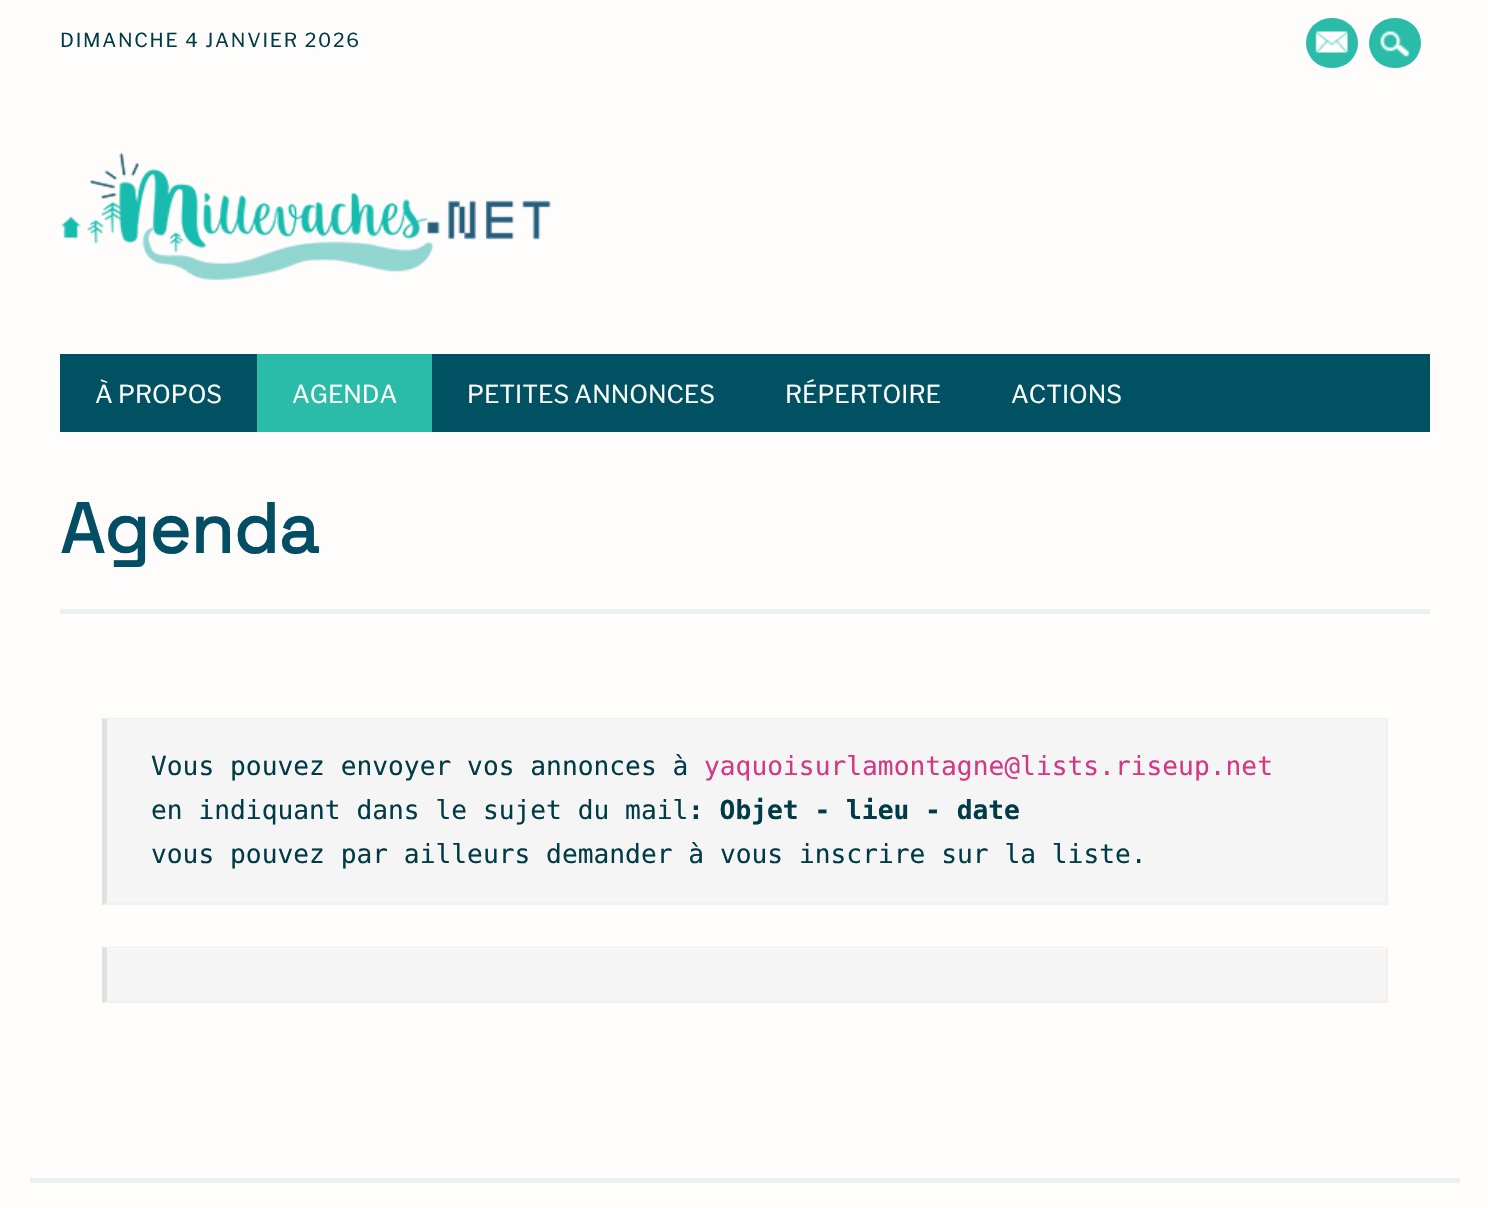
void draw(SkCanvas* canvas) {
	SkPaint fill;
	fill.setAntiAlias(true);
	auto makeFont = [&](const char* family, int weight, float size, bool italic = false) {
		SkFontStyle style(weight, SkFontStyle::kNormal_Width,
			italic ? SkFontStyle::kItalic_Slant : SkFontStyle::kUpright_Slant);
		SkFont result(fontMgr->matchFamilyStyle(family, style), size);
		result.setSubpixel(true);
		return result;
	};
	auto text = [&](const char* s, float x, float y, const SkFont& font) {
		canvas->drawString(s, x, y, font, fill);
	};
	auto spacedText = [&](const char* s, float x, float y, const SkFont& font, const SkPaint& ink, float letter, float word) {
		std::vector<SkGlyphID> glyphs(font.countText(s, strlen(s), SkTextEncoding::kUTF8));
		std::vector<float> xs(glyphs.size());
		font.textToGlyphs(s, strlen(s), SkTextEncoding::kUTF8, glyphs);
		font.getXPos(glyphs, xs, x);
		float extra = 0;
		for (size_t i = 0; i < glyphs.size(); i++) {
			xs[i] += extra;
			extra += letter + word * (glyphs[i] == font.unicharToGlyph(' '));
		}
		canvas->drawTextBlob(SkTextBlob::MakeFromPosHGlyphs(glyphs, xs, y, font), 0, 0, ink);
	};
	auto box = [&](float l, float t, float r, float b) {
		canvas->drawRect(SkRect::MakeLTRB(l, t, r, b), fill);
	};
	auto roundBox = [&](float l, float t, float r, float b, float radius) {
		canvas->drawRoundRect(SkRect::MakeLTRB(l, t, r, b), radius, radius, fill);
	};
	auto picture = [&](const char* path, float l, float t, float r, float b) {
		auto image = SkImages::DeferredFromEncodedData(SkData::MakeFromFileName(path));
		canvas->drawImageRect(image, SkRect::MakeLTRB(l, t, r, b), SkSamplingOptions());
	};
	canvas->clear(0xFFFFFCFC);
	fill.setColor(0xFF2BBCA9);
	roundBox(1306, 18, 1358, 68, 25);
	picture("image0.png", 1315, 31, 1348, 53);
	roundBox(1369, 18, 1421, 68, 25);
	picture("image1.png", 1380, 31, 1410, 57);
	picture("image2.png", 61, 152, 551, 280);
	fill.setColor(0xFF005263);
	box(60, 354, 1430, 432);
	fill.setColor(0xFF2BBCA9);
	box(257, 354, 432, 432);
	fill.setColor(0xFFECF0F1);
	box(60, 609, 1430, 614);
	fill.setColor(0xFFF5F5F5);
	box(107, 719, 1386, 903);
	fill.setColor(0xFFF0F0F0);
	canvas->drawPath(SkPathBuilder().moveTo(102, 718).lineTo(1388, 718).lineTo(1386, 719).lineTo(107, 719).close().detach(), fill);
	box(1386, 718, 1388, 905);
	canvas->drawPath(SkPathBuilder().moveTo(1388, 905).lineTo(102, 905).lineTo(107, 903).lineTo(1386, 903).close().detach(), fill);
	fill.setColor(0xFFE0E0E0);
	canvas->drawPath(SkPathBuilder().moveTo(102, 905).lineTo(102, 718).lineTo(107, 719).lineTo(107, 903).close().detach(), fill);
	fill.setColor(0xFFF5F5F5);
	box(107, 949, 1386, 1001);
	fill.setColor(0xFFF0F0F0);
	canvas->drawPath(SkPathBuilder().moveTo(102, 947).lineTo(1388, 947).lineTo(1386, 948).lineTo(107, 948).close().detach(), fill);
	box(1386, 947, 1388, 1003);
	canvas->drawPath(SkPathBuilder().moveTo(1388, 1003).lineTo(102, 1003).lineTo(107, 1001).lineTo(1386, 1001).close().detach(), fill);
	fill.setColor(0xFFE0E0E0);
	canvas->drawPath(SkPathBuilder().moveTo(102, 1003).lineTo(102, 947).lineTo(107, 948).lineTo(107, 1001).close().detach(), fill);
	fill.setColor(0xFFECF0F1);
	box(30, 1178, 1460, 1183);
	auto font1 = makeFont("Libre Franklin", 100, 19.25f);
	fill.setColor(0xFF003B47);
	spacedText("DIMANCHE 4 JANVIER 2026", 60, 47, font1, fill, 1.75f, 0);
	auto font2 = makeFont("Libre Franklin", 100, 24.5f);
	fill.setColor(0xFFFFFFFF);
	text("À PROPOS", 95, 403, font2);
	text("AGENDA", 292, 403, font2);
	text("PETITES ANNONCES", 467, 403, font2);
	text("RÉPERTOIRE", 785, 403, font2);
	text("ACTIONS", 1011, 403, font2);
	auto font3 = makeFont("Space Grotesk", 700, 70);
	fill.setColor(0xFF034D65);
	text("Agenda", 60, 553, font3);
	auto font4 = makeFont("DejaVu Sans Mono", 400, 26.25f);
	fill.setColor(0xFF003B47);
	text("Vous pouvez envoyer vos annonces à", 151, 775, font4);
	fill.setColor(0xFFD33785);
	text("yaquoisurlamontagne@lists.riseup.net", 704, 775, font4);
	fill.setColor(0xFF003B47);
	text("en indiquant dans le sujet du mail", 151, 819, font4);
	auto font5 = makeFont("DejaVu Sans Mono", 700, 26.25f);
	text(": Objet - lieu - date", 688, 819, font5);
	text("vous pouvez par ailleurs demander à vous inscrire sur la liste.", 151, 863, font4);
}
